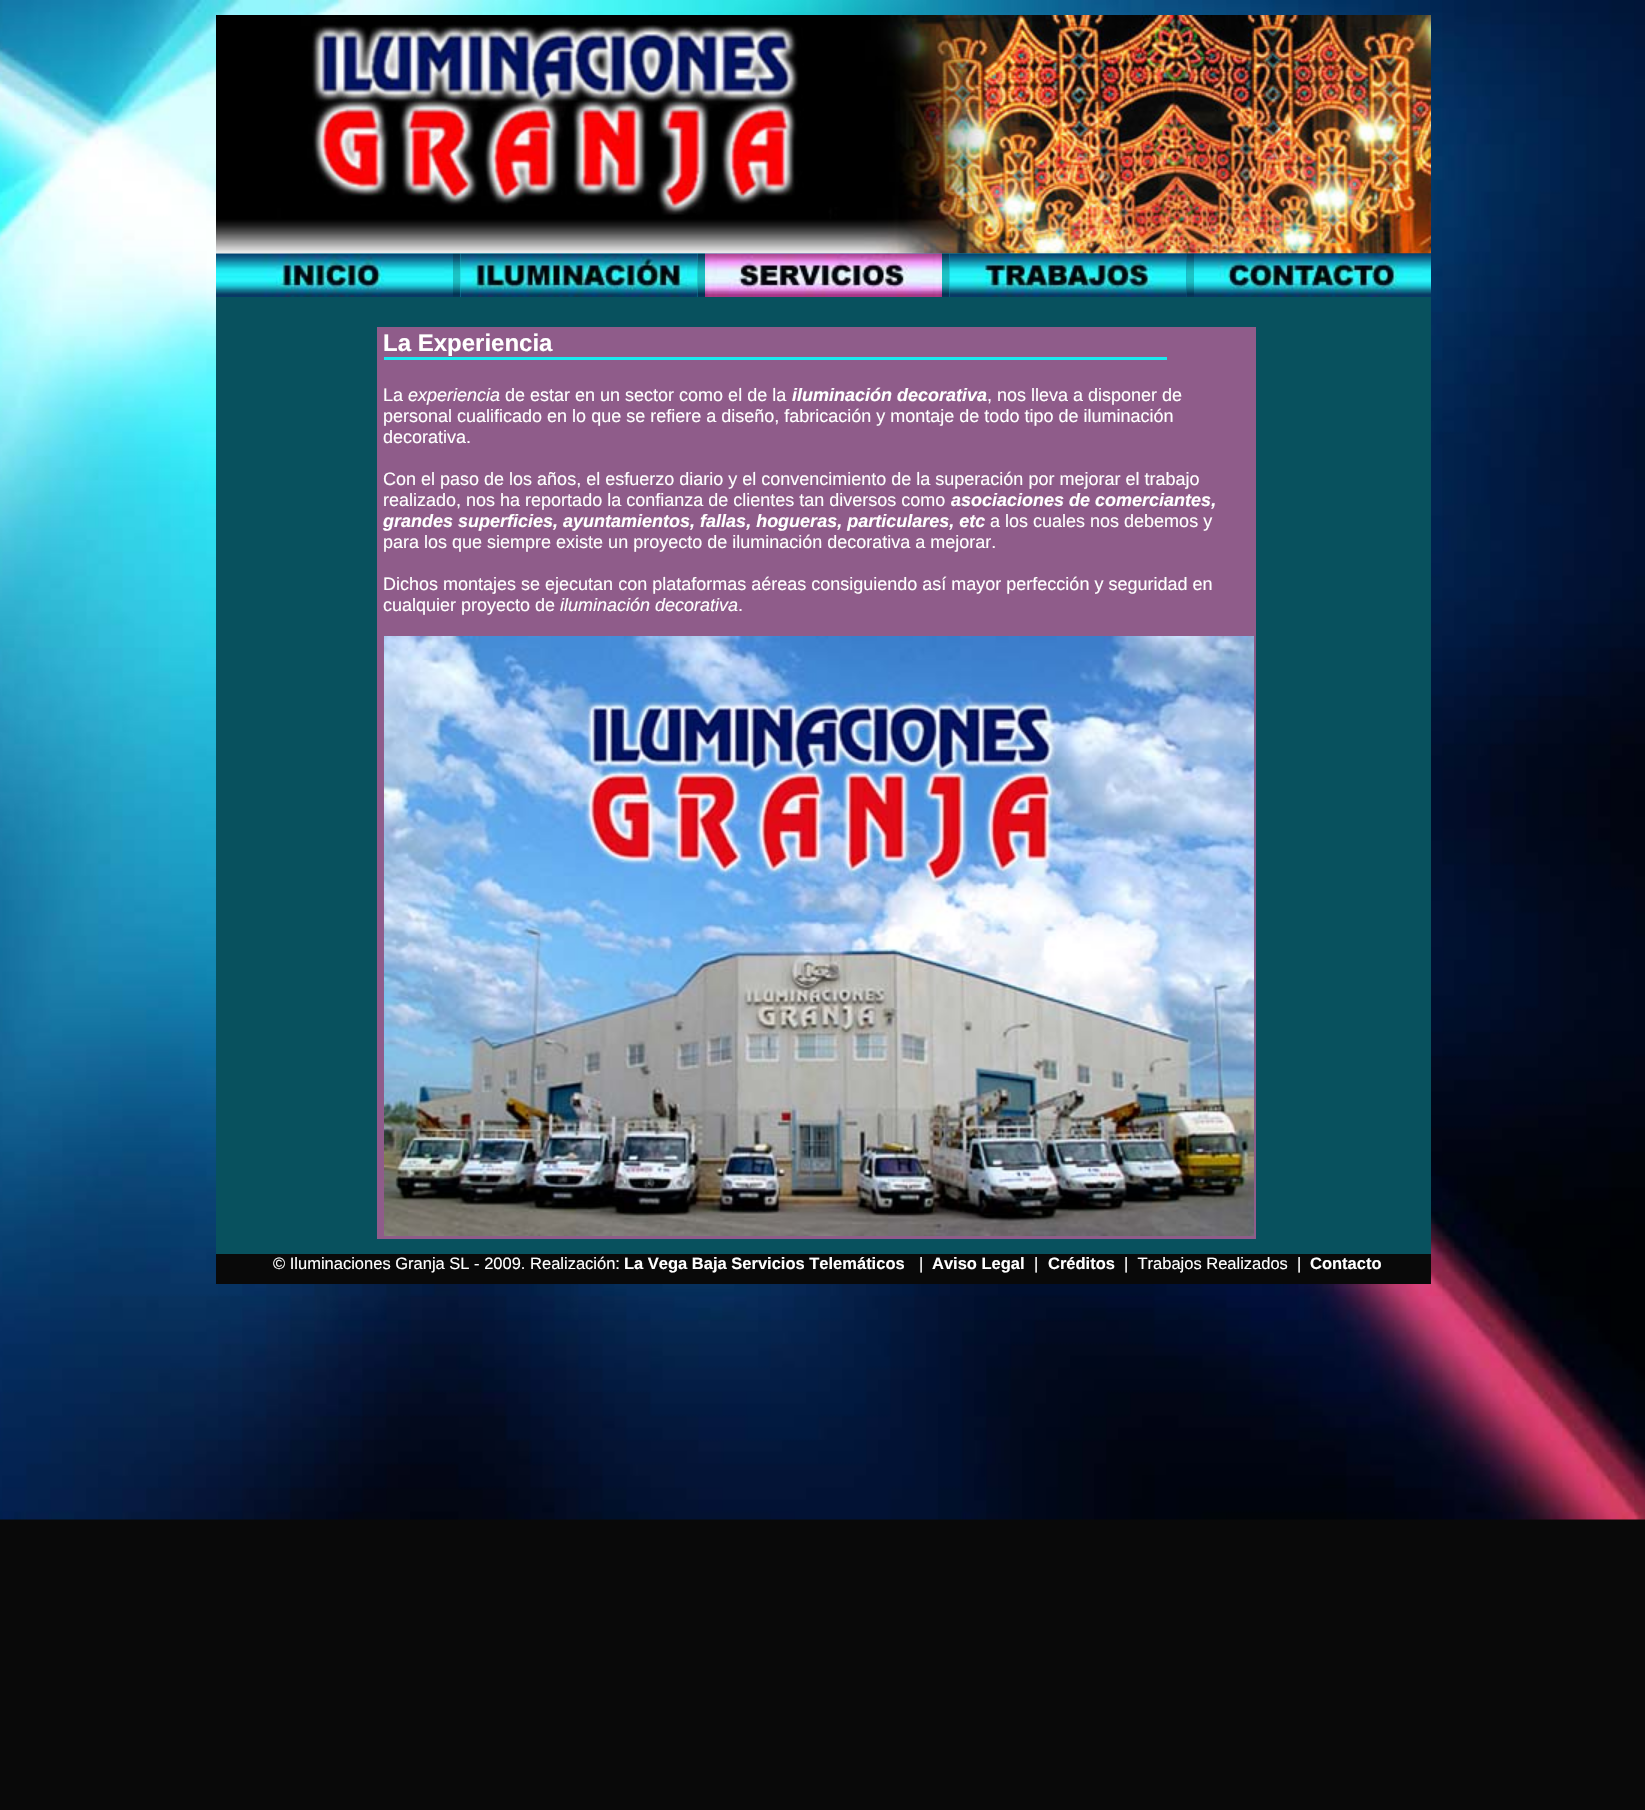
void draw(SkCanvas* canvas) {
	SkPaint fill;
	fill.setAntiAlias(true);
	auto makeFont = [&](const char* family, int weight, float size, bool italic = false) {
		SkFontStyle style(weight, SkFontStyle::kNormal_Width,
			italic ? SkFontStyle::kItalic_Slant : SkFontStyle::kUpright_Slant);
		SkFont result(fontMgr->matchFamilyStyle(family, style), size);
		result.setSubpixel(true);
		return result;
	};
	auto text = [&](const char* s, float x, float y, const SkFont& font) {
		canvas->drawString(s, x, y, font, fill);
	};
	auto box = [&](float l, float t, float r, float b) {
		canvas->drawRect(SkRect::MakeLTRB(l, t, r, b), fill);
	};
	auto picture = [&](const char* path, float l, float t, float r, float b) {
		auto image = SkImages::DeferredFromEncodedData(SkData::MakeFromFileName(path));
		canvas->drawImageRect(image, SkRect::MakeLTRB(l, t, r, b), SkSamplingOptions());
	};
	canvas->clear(0xFF090909);
	picture("image0.png", 0, 0, 1645, 1520);
	picture("image1.png", 216, 15, 1431, 254);
	picture("image2.png", 216, 253, 453, 297);
	picture("image3.png", 453, 253, 461, 297);
	picture("image4.png", 460, 253, 698, 297);
	picture("image5.png", 697, 253, 705, 297);
	picture("image6.png", 705, 253, 942, 297);
	picture("image7.png", 942, 253, 950, 297);
	picture("image8.png", 949, 253, 1187, 297);
	picture("image9.png", 1186, 253, 1194, 297);
	picture("image10.png", 1194, 253, 1431, 297);
	fill.setColor(0xFF08515E);
	box(216, 297, 1431, 1254);
	fill.setColor(0xFF8F5C8A);
	box(377, 327, 1256, 1239);
	fill.setColor(0xFF1BEAF0);
	box(384, 357, 1167, 360);
	picture("image11.png", 384, 636, 1254, 1236);
	fill.setColor(0xFF090909);
	box(216, 1254, 1431, 1284);
	auto font1 = makeFont("Liberation Sans", 700, 24);
	fill.setColor(0xFFFFFFFF);
	text("La Experiencia", 383, 351, font1);
	auto font2 = makeFont("Liberation Sans", 400, 18);
	text("La", 383, 401, font2);
	auto font3 = makeFont("Liberation Sans", 400, 18, true);
	text("experiencia", 408, 401, font3);
	text("de estar en un sector como el de la", 505, 401, font2);
	auto font4 = makeFont("Liberation Sans", 700, 18, true);
	text("iluminación decorativa", 792, 401, font4);
	text(", nos lleva a disponer de", 987, 401, font2);
	text("personal cualificado en lo que se refiere a diseño, fabricación y montaje de todo tipo de iluminación", 383, 422, font2);
	text("decorativa.", 383, 443, font2);
	text("Con el paso de los años, el esfuerzo diario y el convencimiento de la superación por mejorar el trabajo", 383, 485, font2);
	text("realizado, nos ha reportado la confianza de clientes tan diversos como", 383, 506, font2);
	text("asociaciones de comerciantes,", 951, 506, font4);
	text("grandes superficies, ayuntamientos, fallas, hogueras, particulares, etc", 383, 527, font4);
	text("a los cuales nos debemos y", 990, 527, font2);
	text("para los que siempre existe un proyecto de iluminación decorativa a mejorar.", 383, 548, font2);
	text("Dichos montajes se ejecutan con plataformas aéreas consiguiendo así mayor perfección y seguridad en", 383, 590, font2);
	text("cualquier proyecto de", 383, 611, font2);
	text("iluminación decorativa", 560, 611, font3);
	text(".", 738, 611, font2);
	auto font5 = makeFont("Liberation Sans", 400, 16.5f);
	text("© Iluminaciones Granja SL - 2009. Realización:", 273, 1269, font5);
	auto font6 = makeFont("Liberation Sans", 700, 16.5f);
	text("La Vega Baja Servicios Telemáticos", 624, 1269, font6);
	text("|", 919, 1269, font5);
	text("Aviso Legal", 932, 1269, font6);
	text("|", 1034, 1269, font5);
	text("Créditos", 1048, 1269, font6);
	text("|  Trabajos Realizados  |", 1124, 1269, font5);
	text("Contacto", 1310, 1269, font6);
}
